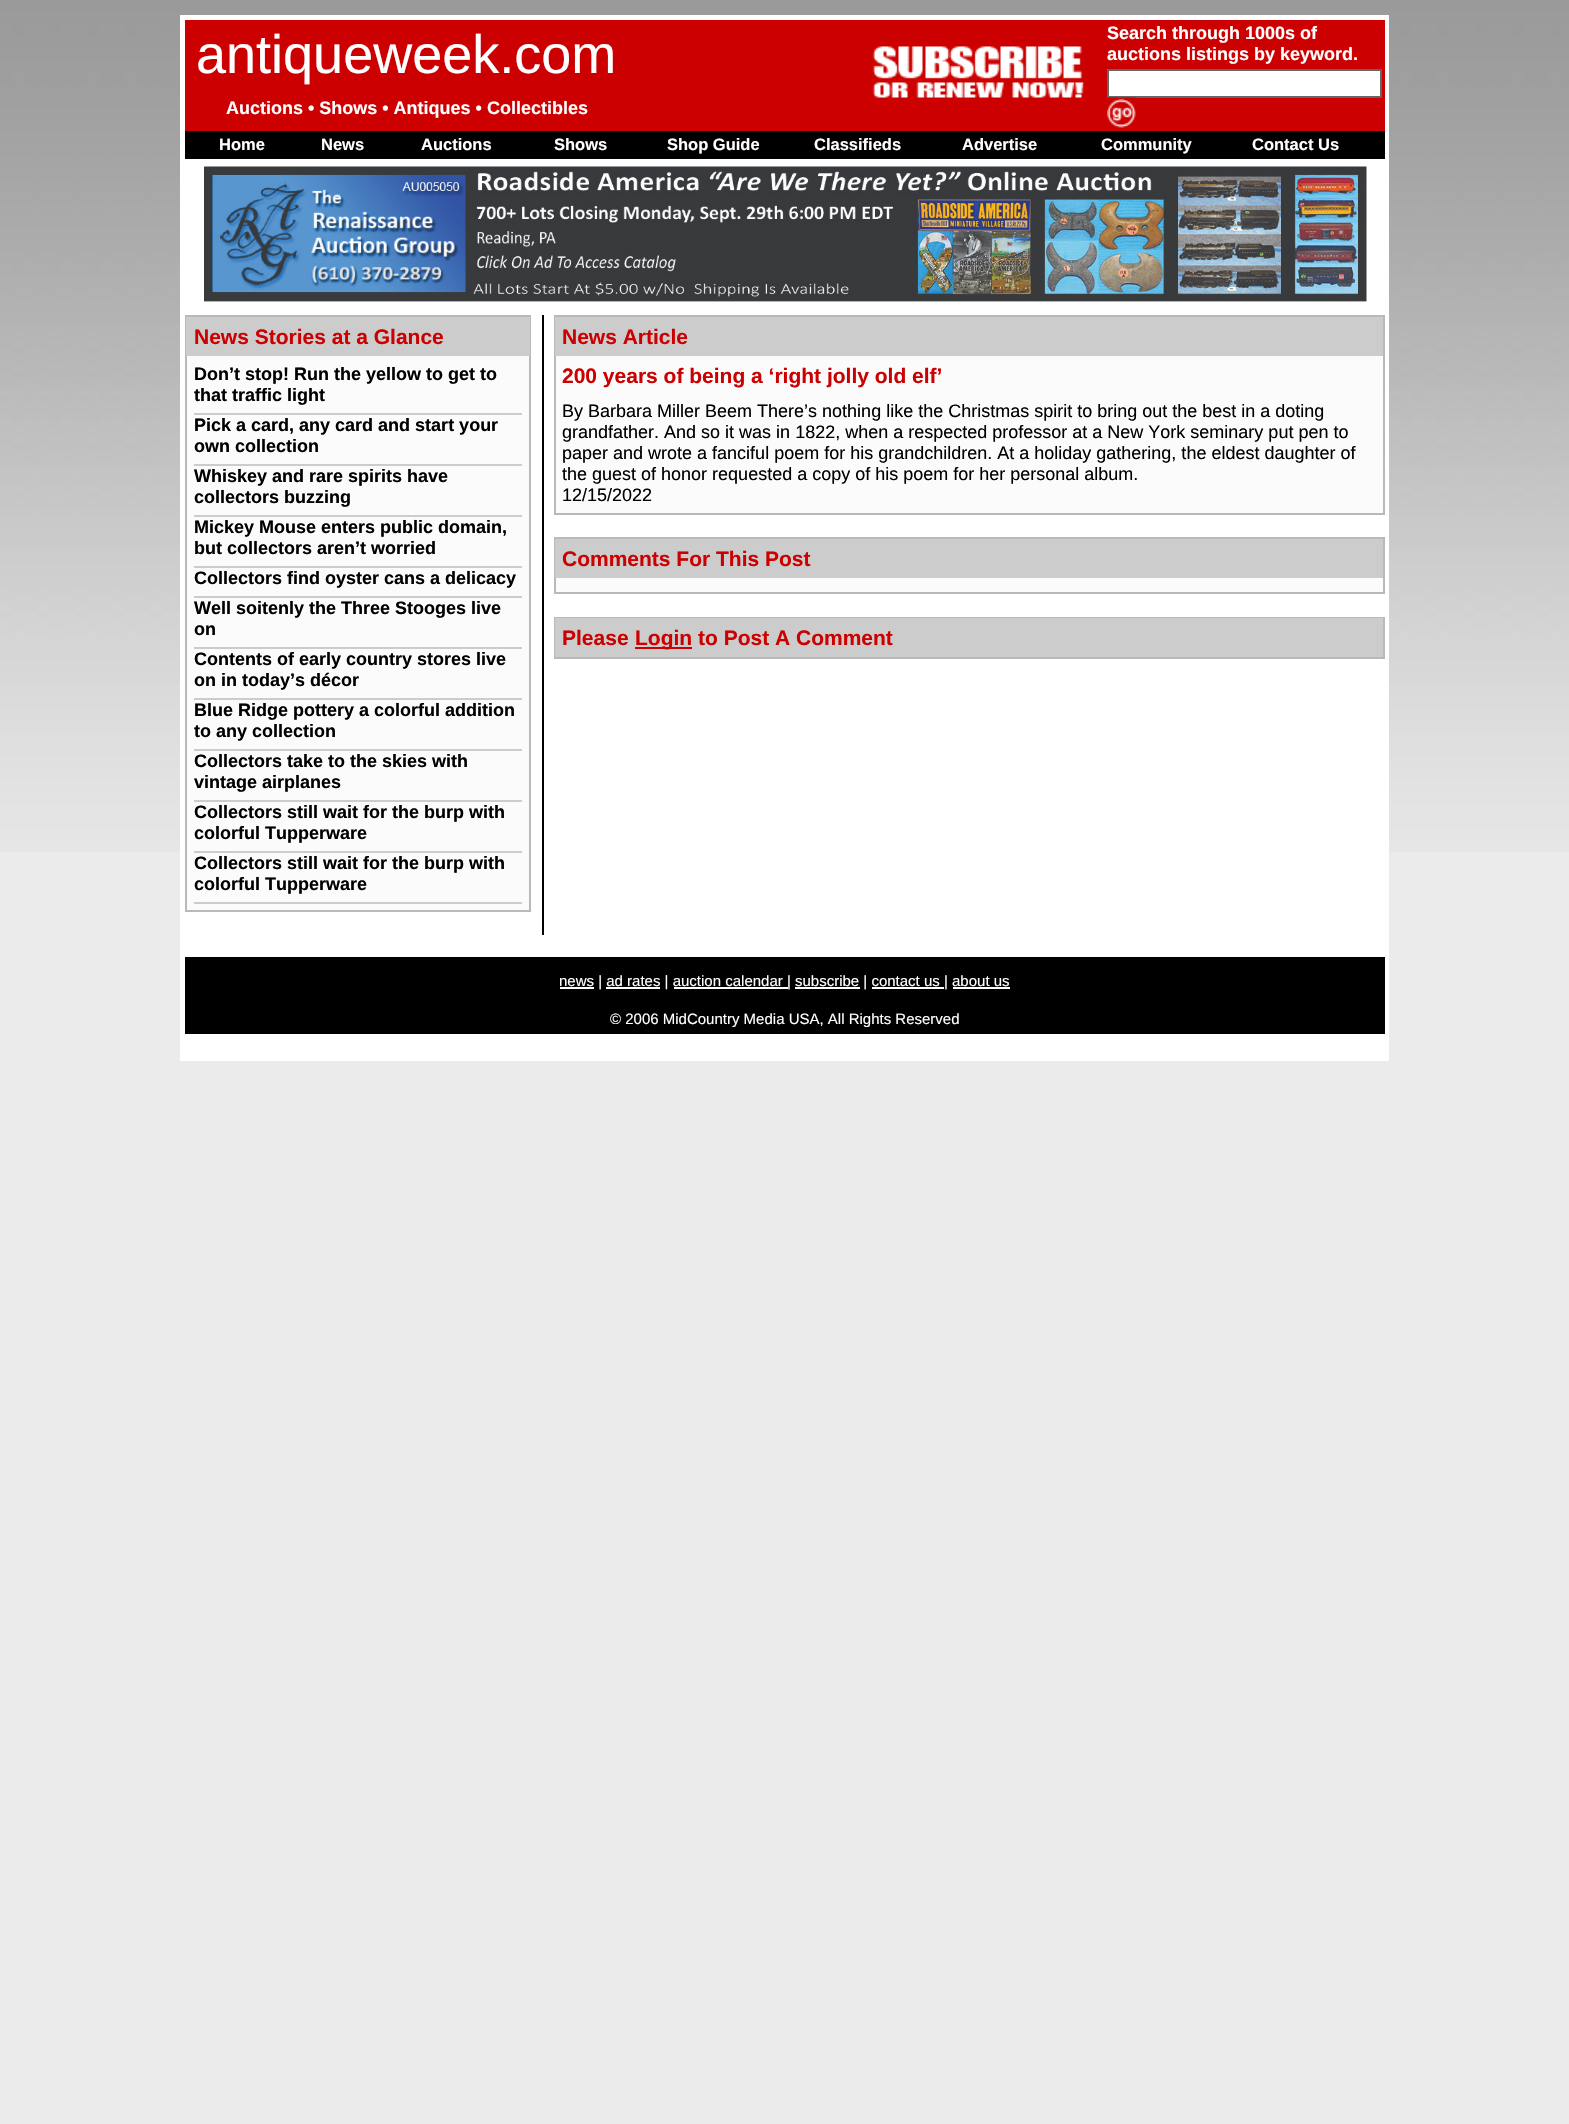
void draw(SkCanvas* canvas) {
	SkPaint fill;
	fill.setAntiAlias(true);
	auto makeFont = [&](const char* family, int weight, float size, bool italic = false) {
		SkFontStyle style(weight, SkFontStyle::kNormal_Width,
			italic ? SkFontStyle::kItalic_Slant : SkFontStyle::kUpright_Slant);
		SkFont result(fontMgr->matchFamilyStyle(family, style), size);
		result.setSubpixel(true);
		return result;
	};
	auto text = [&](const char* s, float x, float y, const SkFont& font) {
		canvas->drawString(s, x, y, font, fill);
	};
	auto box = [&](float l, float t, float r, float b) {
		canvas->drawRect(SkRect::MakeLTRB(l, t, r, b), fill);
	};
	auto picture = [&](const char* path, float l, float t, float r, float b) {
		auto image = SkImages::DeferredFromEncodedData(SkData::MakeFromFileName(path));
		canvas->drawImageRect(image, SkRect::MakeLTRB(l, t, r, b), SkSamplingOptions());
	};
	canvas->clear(0xFFEBEBEB);
	picture("image0.png", 0, 0, 1569, 852);
	fill.setStyle(SkPaint::kStroke_Style);
	fill.setStrokeWidth(5);
	fill.setColor(0xFFFFFFFF);
	canvas->drawRect(SkRect::MakeLTRB(182.5f, 17.5f, 1386.5f, 311.5f), fill);
	fill.setStyle(SkPaint::kFill_Style);
	fill.setColor(0xFFCC0000);
	box(185, 20, 1385, 131);
	picture("image1.png", 872, 46, 1085, 102);
	fill.setColor(0xFFFFFFFF);
	canvas->drawRect(SkRect::MakeLTRB(1108, 70, 1381, 97), fill);
	fill.setStyle(SkPaint::kStroke_Style);
	fill.setStrokeWidth(2);
	fill.setColor(0xFF666666);
	canvas->drawRect(SkRect::MakeLTRB(1108, 70, 1381, 97), fill);
	picture("image2.png", 1107, 97, 1136, 128);
	fill.setStyle(SkPaint::kFill_Style);
	fill.setColor(0xFF000000);
	box(185, 131, 1385, 159);
	fill.setColor(0xFFFFFFFF);
	box(185, 159, 1384, 309);
	picture("image3.png", 204, 166, 1367, 302);
	box(180, 314, 1389, 1061);
	fill.setColor(0xFFFBFBFB);
	box(187, 356, 529, 910);
	fill.setStyle(SkPaint::kStroke_Style);
	fill.setColor(0xFFB9B9B9);
	canvas->drawRect(SkRect::MakeLTRB(186, 316, 530, 911), fill);
	fill.setStyle(SkPaint::kFill_Style);
	fill.setColor(0xFFCCCCCC);
	box(186, 317, 530, 356);
	box(194, 413, 522, 415);
	box(194, 464, 522, 466);
	box(194, 515, 522, 517);
	box(194, 566, 522, 568);
	box(194, 596, 522, 598);
	box(194, 647, 522, 649);
	box(194, 698, 522, 700);
	box(194, 749, 522, 751);
	box(194, 800, 522, 802);
	box(194, 851, 522, 853);
	box(194, 902, 522, 904);
	fill.setColor(0xFF000000);
	box(542, 315, 544, 935);
	fill.setColor(0xFFFBFBFB);
	box(556, 356, 1383, 513);
	fill.setStyle(SkPaint::kStroke_Style);
	fill.setColor(0xFFB9B9B9);
	canvas->drawRect(SkRect::MakeLTRB(555, 316, 1384, 514), fill);
	fill.setStyle(SkPaint::kFill_Style);
	fill.setColor(0xFFCCCCCC);
	box(555, 317, 1383, 356);
	fill.setColor(0xFFFBFBFB);
	box(556, 578, 1383, 592);
	fill.setStyle(SkPaint::kStroke_Style);
	fill.setColor(0xFFB9B9B9);
	canvas->drawRect(SkRect::MakeLTRB(555, 538, 1384, 593), fill);
	fill.setStyle(SkPaint::kFill_Style);
	fill.setColor(0xFFCCCCCC);
	box(555, 539, 1383, 578);
	fill.setStyle(SkPaint::kStroke_Style);
	fill.setColor(0xFFB9B9B9);
	canvas->drawRect(SkRect::MakeLTRB(555, 618, 1384, 658), fill);
	fill.setStyle(SkPaint::kFill_Style);
	fill.setColor(0xFFCCCCCC);
	box(555, 618, 1383, 657);
	fill.setColor(0xFFCC0000);
	box(635, 647, 692, 649);
	fill.setColor(0xFF000000);
	box(185, 957, 1385, 1034);
	fill.setColor(0xFFFFFFFF);
	box(560, 987, 594, 989);
	box(606, 987, 660, 989);
	box(674, 987, 788, 989);
	box(795, 987, 860, 989);
	box(872, 987, 944, 989);
	box(953, 987, 1010, 989);
	auto font1 = makeFont("Liberation Sans", 400, 54);
	text("antiqueweek.com", 196, 73, font1);
	auto font2 = makeFont("Liberation Sans", 700, 18);
	text("Auctions • Shows • Antiques • Collectibles", 226, 114, font2);
	text("Search through 1000s of", 1107, 39, font2);
	text("auctions listings by keyword.", 1107, 60, font2);
	auto font3 = makeFont("Liberation Sans", 700, 16.5f);
	text("Home", 219, 150, font3);
	text("News", 321, 150, font3);
	text("Auctions", 421, 150, font3);
	text("Shows", 554, 150, font3);
	text("Shop Guide", 667, 150, font3);
	text("Classifieds", 814, 150, font3);
	text("Advertise", 962, 150, font3);
	text("Community", 1101, 150, font3);
	text("Contact Us", 1252, 150, font3);
	auto font4 = makeFont("Liberation Sans", 700, 21);
	fill.setColor(0xFFCC0000);
	text("News Stories at a Glance", 194, 344, font4);
	fill.setColor(0xFF000000);
	text("Don’t stop! Run the yellow to get to", 194, 380, font2);
	text("that traffic light", 194, 401, font2);
	text("Pick a card, any card and start your", 194, 431, font2);
	text("own collection", 194, 452, font2);
	text("Whiskey and rare spirits have", 194, 482, font2);
	text("collectors buzzing", 194, 503, font2);
	text("Mickey Mouse enters public domain,", 194, 533, font2);
	text("but collectors aren’t worried", 194, 554, font2);
	text("Collectors find oyster cans a delicacy", 194, 584, font2);
	text("Well soitenly the Three Stooges live", 194, 614, font2);
	text("on", 194, 635, font2);
	text("Contents of early country stores live", 194, 665, font2);
	text("on in today’s décor", 194, 686, font2);
	text("Blue Ridge pottery a colorful addition", 194, 716, font2);
	text("to any collection", 194, 737, font2);
	text("Collectors take to the skies with", 194, 767, font2);
	text("vintage airplanes", 194, 788, font2);
	text("Collectors still wait for the burp with", 194, 818, font2);
	text("colorful Tupperware", 194, 839, font2);
	text("Collectors still wait for the burp with", 194, 869, font2);
	text("colorful Tupperware", 194, 890, font2);
	fill.setColor(0xFFCC0000);
	text("News Article", 562, 344, font4);
	text("200 years of being a ‘right jolly old elf’", 562, 383, font4);
	auto font5 = makeFont("Liberation Sans", 400, 18);
	fill.setColor(0xFF000000);
	text("By Barbara Miller Beem There’s nothing like the Christmas spirit to bring out the best in a doting", 562, 417, font5);
	text("grandfather. And so it was in 1822, when a respected professor at a New York seminary put pen to", 562, 438, font5);
	text("paper and wrote a fanciful poem for his grandchildren. At a holiday gathering, the eldest daughter of", 562, 459, font5);
	text("the guest of honor requested a copy of his poem for her personal album.", 562, 480, font5);
	text("12/15/2022", 562, 501, font5);
	fill.setColor(0xFFCC0000);
	text("Comments For This Post", 562, 566, font4);
	text("Please", 562, 645, font4);
	text("Login to Post A Comment", 635, 645, font4);
	auto font6 = makeFont("Liberation Sans", 400, 15);
	fill.setColor(0xFFFFFFFF);
	text("news | ad rates | auction calendar | subscribe | contact us | about us", 559, 986, font6);
	text("© 2006 MidCountry Media USA, All Rights Reserved", 610, 1024, font6);
}
